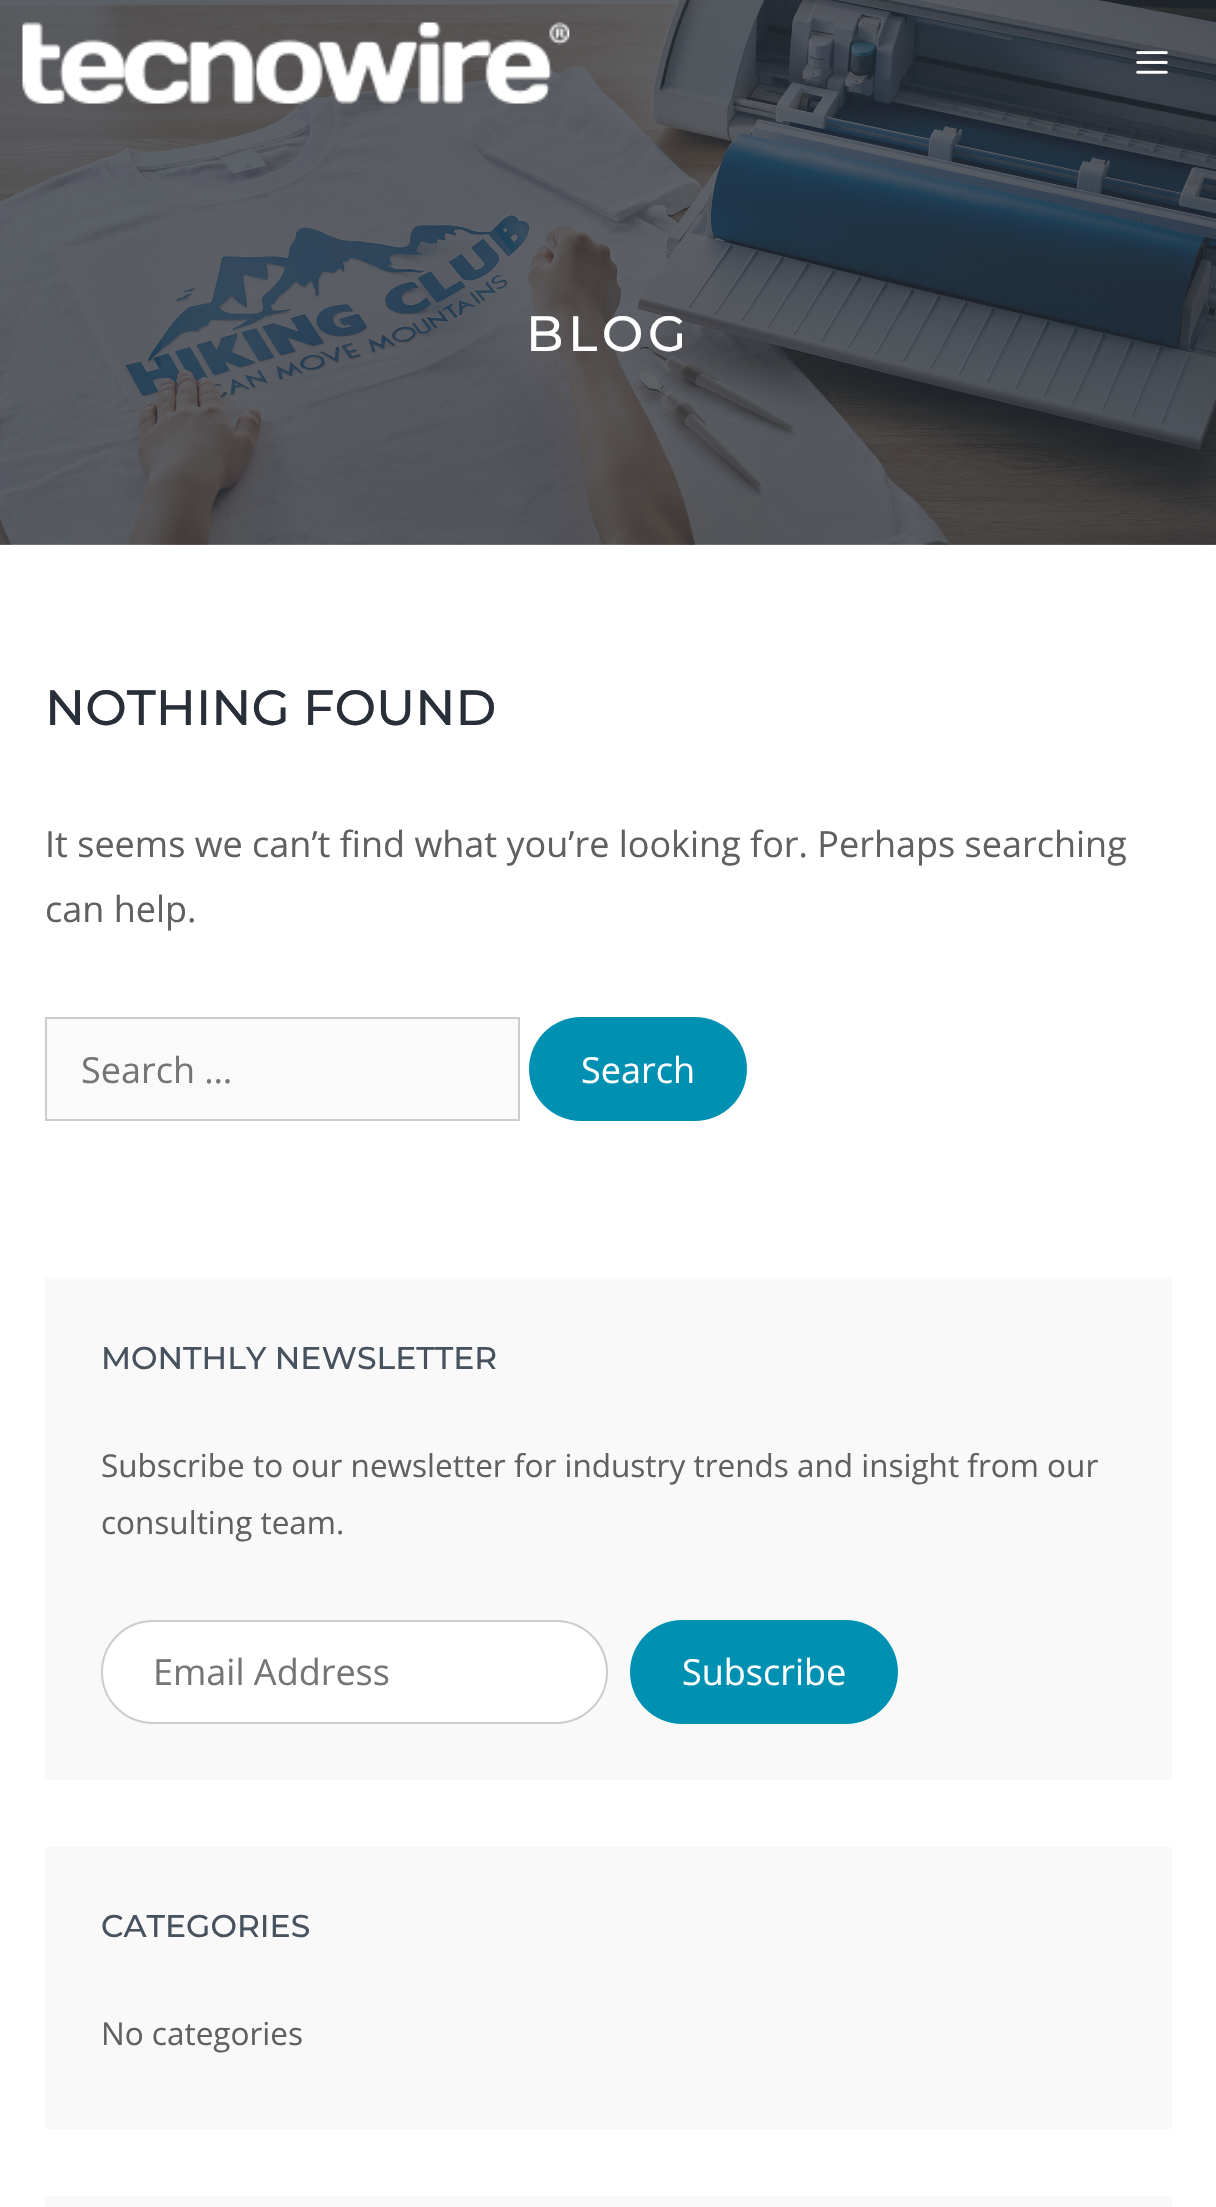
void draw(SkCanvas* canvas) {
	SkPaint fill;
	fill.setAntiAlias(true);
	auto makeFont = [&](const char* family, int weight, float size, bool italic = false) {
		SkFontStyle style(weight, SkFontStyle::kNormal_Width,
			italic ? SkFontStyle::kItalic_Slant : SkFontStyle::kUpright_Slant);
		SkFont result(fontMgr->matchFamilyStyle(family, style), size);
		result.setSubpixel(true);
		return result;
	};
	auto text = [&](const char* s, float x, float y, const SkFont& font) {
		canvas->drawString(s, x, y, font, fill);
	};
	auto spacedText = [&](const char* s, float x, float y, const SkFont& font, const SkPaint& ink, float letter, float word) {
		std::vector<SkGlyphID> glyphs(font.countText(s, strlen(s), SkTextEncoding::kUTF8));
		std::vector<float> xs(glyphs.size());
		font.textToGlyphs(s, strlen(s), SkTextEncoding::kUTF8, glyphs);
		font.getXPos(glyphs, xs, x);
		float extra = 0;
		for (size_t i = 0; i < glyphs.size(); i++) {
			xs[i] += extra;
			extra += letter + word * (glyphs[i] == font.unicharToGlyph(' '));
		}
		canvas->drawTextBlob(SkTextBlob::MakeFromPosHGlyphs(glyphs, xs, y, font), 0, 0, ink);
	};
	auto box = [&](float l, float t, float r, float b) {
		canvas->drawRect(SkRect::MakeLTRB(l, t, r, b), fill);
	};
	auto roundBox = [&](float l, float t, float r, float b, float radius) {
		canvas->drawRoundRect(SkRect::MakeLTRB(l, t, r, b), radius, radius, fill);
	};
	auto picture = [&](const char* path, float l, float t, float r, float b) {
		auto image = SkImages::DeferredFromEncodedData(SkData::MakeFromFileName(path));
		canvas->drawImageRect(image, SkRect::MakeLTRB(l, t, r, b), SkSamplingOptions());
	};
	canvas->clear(0xFFFFFFFF);
	fill.setColor(0xFF5E636A);
	box(0, 544, 1216, 545);
	picture("image2.png", 0, 0, 1216, 545);
	picture("image0.png", 22, 22, 570, 104);
	picture("image1.png", 1136, 51, 1168, 74);
	fill.setColor(0xFFFAFAFA);
	canvas->drawRect(SkRect::MakeLTRB(46, 1018, 519, 1120), fill);
	fill.setStyle(SkPaint::kStroke_Style);
	fill.setStrokeWidth(2);
	fill.setColor(0xFFCCCCCC);
	canvas->drawRect(SkRect::MakeLTRB(46, 1018, 519, 1120), fill);
	fill.setStyle(SkPaint::kFill_Style);
	fill.setColor(0xFF0091B2);
	roundBox(529, 1017, 747, 1121, 52);
	fill.setColor(0xFFF9F9F9);
	box(45, 1278, 1172, 1780);
	fill.setColor(0xFFFFFFFF);
	canvas->drawRoundRect(SkRect::MakeLTRB(102, 1621, 607, 1723), 51, 51, fill);
	fill.setStyle(SkPaint::kStroke_Style);
	fill.setColor(0xFFCCCCCC);
	canvas->drawRoundRect(SkRect::MakeLTRB(102, 1621, 607, 1723), 51, 51, fill);
	fill.setStyle(SkPaint::kFill_Style);
	fill.setColor(0xFF0091B2);
	roundBox(630, 1620, 898, 1724, 52);
	fill.setColor(0xFFF9F9F9);
	box(45, 1847, 1172, 2129);
	box(45, 2196, 1172, 2207);
	auto font1 = makeFont("Montserrat", 500, 49.5f);
	fill.setColor(0xFFFFFFFF);
	spacedText("BLOG", 526, 351, font1, fill, 4.5f, 0);
	fill.setColor(0xFF282F38);
	text("NOTHING FOUND", 45, 725, font1);
	auto font2 = makeFont("Open Sans", 400, 36);
	fill.setColor(0xFF606060);
	text("It seems we can’t find what you’re looking for. Perhaps searching", 45, 857, font2);
	text("can help.", 45, 922, font2);
	fill.setColor(0xFF757575);
	text("Search …", 81, 1083, font2);
	fill.setColor(0xFFFFFFFF);
	text("Search", 581, 1083, font2);
	auto font3 = makeFont("Montserrat", 500, 31.5f);
	fill.setColor(0xFF47525F);
	text("MONTHLY NEWSLETTER", 101, 1369, font3);
	auto font4 = makeFont("Open Sans", 400, 31.5f);
	fill.setColor(0xFF606060);
	text("Subscribe to our newsletter for industry trends and insight from our", 101, 1477, font4);
	text("consulting team.", 101, 1534, font4);
	fill.setColor(0xFF757575);
	text("Email Address", 153, 1685, font2);
	fill.setColor(0xFFFFFFFF);
	text("Subscribe", 682, 1685, font2);
	fill.setColor(0xFF47525F);
	text("CATEGORIES", 101, 1937, font3);
	fill.setColor(0xFF606060);
	text("No categories", 101, 2045, font4);
}
